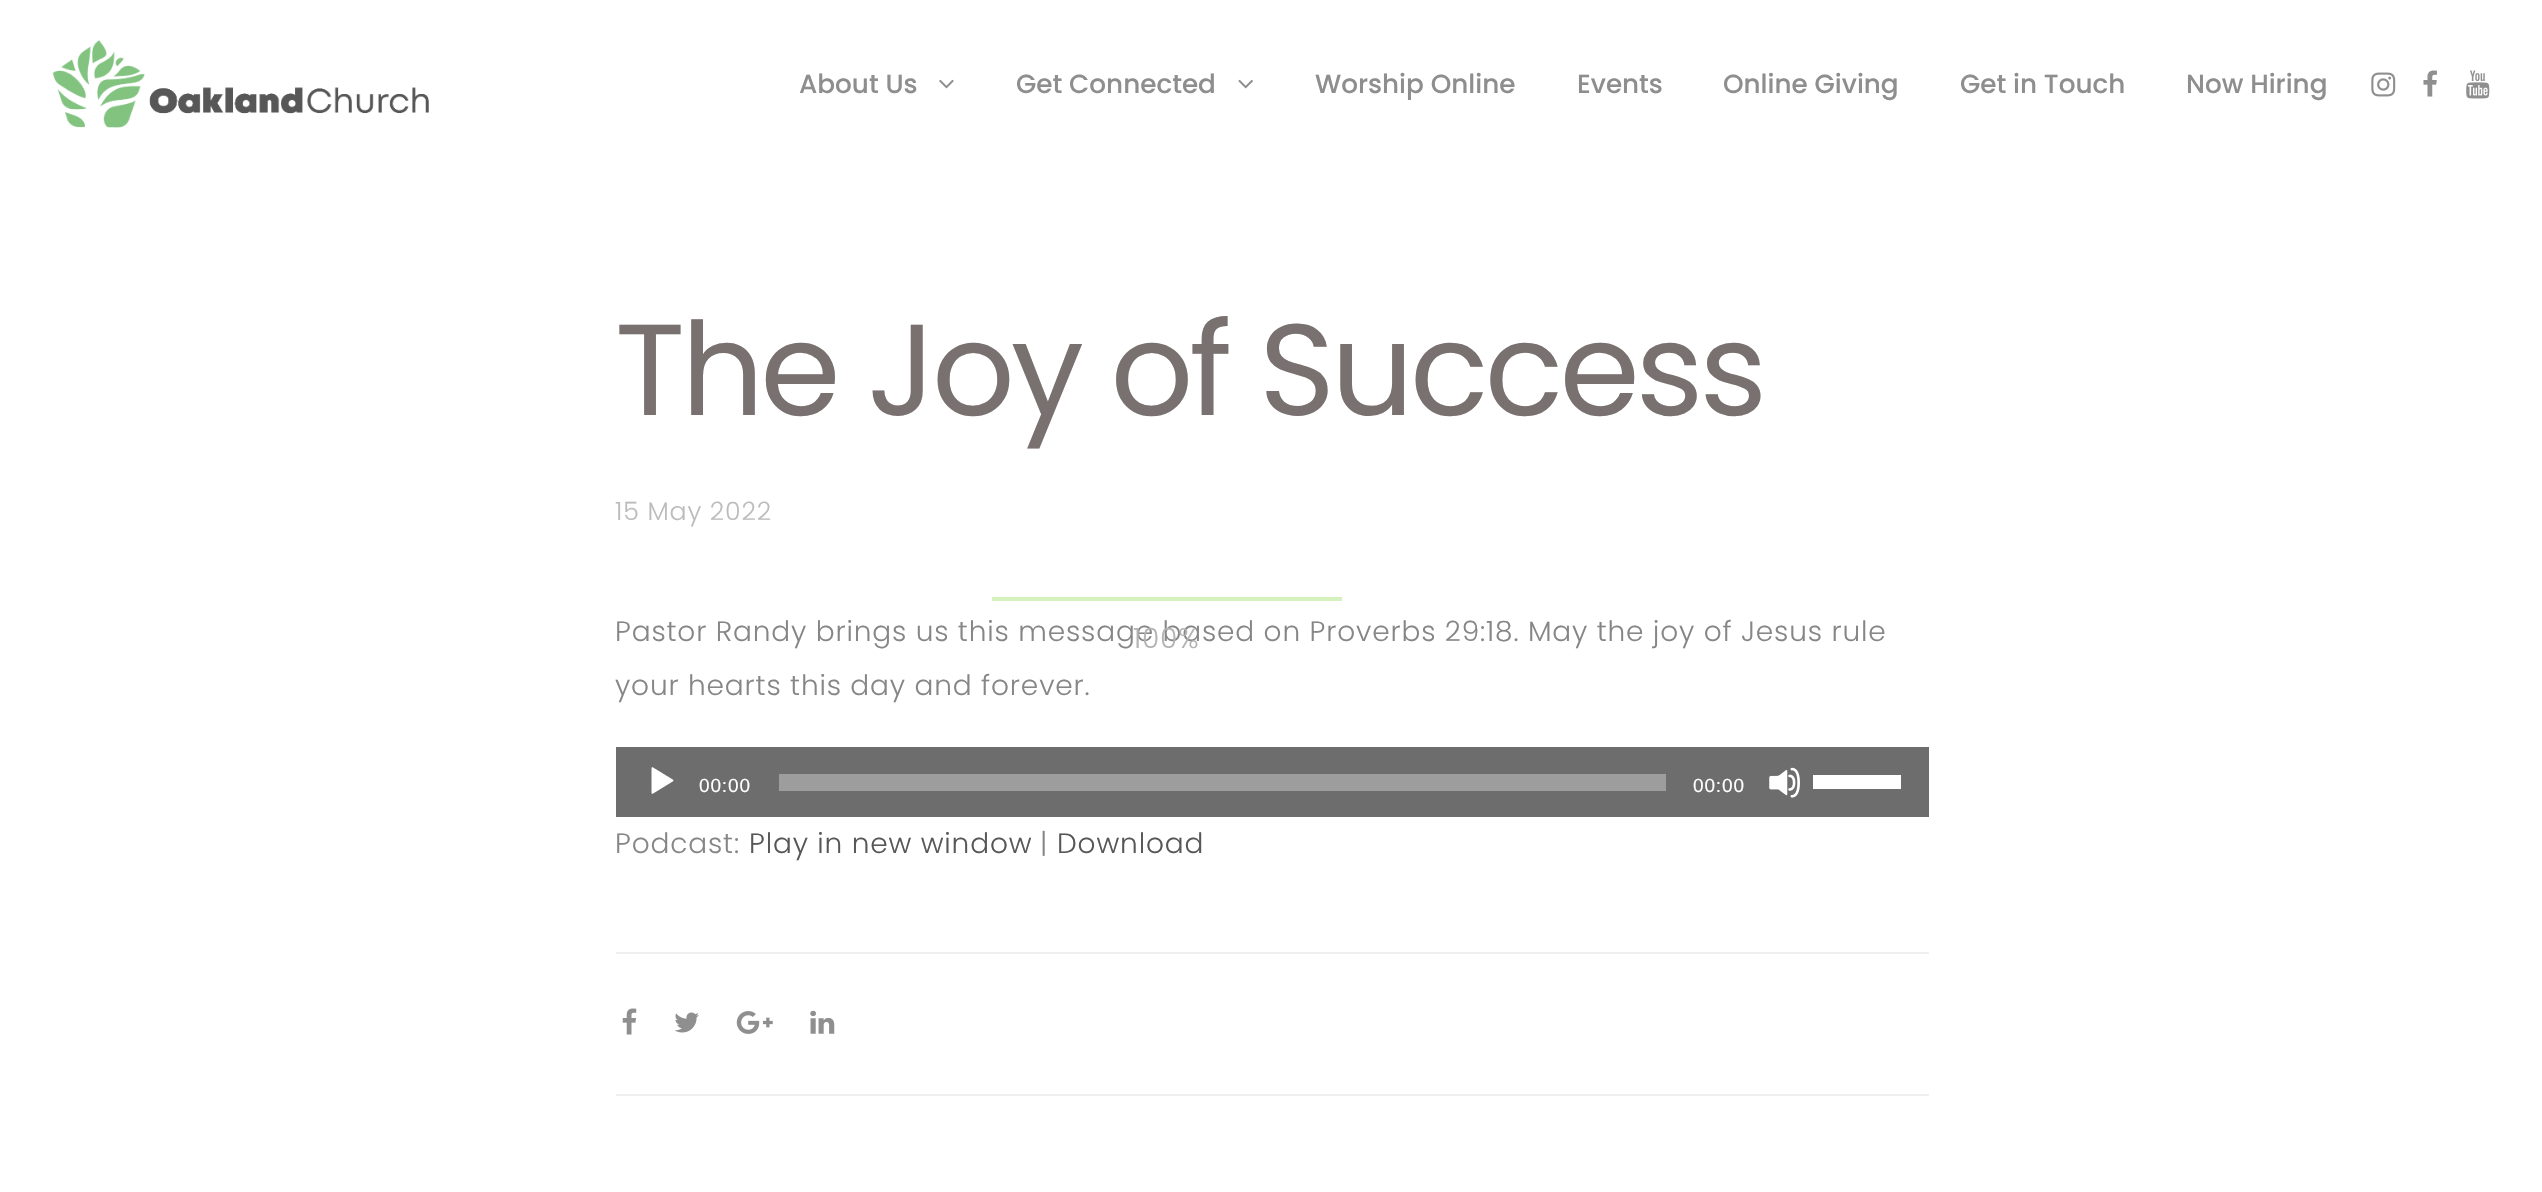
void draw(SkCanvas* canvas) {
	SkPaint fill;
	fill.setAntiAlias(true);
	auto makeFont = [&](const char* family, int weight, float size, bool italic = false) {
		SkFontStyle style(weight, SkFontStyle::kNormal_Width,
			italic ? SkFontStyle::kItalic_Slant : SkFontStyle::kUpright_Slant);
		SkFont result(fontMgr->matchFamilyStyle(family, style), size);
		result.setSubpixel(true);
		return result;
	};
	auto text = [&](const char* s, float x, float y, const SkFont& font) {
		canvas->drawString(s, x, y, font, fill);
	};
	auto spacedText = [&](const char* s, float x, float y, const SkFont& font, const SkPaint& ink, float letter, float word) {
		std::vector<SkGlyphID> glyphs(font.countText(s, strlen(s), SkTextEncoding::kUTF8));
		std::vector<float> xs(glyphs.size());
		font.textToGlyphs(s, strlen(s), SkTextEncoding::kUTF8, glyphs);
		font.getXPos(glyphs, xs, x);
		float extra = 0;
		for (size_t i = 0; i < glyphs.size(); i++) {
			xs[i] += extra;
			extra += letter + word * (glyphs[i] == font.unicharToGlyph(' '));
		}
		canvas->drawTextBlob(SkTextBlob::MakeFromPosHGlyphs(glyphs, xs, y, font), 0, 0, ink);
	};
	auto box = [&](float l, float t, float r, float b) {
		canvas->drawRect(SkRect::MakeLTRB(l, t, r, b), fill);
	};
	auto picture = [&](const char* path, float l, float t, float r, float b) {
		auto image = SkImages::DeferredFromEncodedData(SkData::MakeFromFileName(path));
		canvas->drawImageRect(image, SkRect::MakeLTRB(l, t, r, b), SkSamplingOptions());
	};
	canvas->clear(0xFFFFFFFF);
	picture("image0.png", 52, 40, 429, 128);
	picture("image1.png", 939, 79, 954, 89);
	picture("image2.png", 1238, 79, 1253, 89);
	picture("image3.png", 2371, 72, 2396, 97);
	picture("image4.png", 2423, 70, 2437, 97);
	picture("image5.png", 2466, 70, 2490, 99);
	fill.setColor(0xFF6D6D6D);
	box(616, 747, 1929, 817);
	picture("image6.png", 651, 767, 674, 794);
	fill.setColor(0xFF9D9D9D);
	box(779, 774, 1666, 791);
	picture("image7.png", 1769, 767, 1800, 798);
	fill.setColor(0xFFFFFFFF);
	box(1813, 775, 1901, 789);
	fill.setColor(0xFFF0F0F0);
	box(616, 952, 1929, 954);
	box(616, 1094, 1929, 1096);
	picture("image8.png", 622, 1008, 637, 1035);
	picture("image9.png", 674, 1012, 699, 1033);
	picture("image10.png", 736, 1011, 773, 1034);
	picture("image11.png", 810, 1010, 835, 1034);
	fill.setColor(0xFFD4F1BE);
	box(992, 597, 1342, 601);
	auto font1 = makeFont("Poppins", 500, 26.25f);
	fill.setColor(0xFF8E8E8E);
	text("About Us", 799, 93, font1);
	text("Get Connected", 1016, 93, font1);
	text("Worship Online", 1315, 93, font1);
	text("Events", 1577, 93, font1);
	text("Online Giving", 1723, 93, font1);
	text("Get in Touch", 1960, 93, font1);
	text("Now Hiring", 2186, 93, font1);
	auto font2 = makeFont("Poppins", 400, 129.5f);
	fill.setColor(0xFF797170);
	spacedText("The Joy of Success", 615, 415, font2, fill, -3.9f, 0);
	auto font3 = makeFont("Poppins", 300, 25.25f);
	fill.setColor(0xFFBCBCBC);
	spacedText("15 May 2022", 615, 520, font3, fill, 0.85f, 0);
	auto font4 = makeFont("Poppins", 300, 28);
	fill.setColor(0xFF868686);
	spacedText("Pastor Randy brings us this message based on Proverbs 29:18. May the joy of Jesus rule", 615, 641, font4, fill, 0.85f, 0);
	spacedText("your hearts this day and forever.", 615, 695, font4, fill, 0.85f, 0);
	auto font5 = makeFont("Liberation Sans", 400, 19);
	fill.setColor(0xFFFFFFFF);
	spacedText("00:00", 699, 792, font5, fill, 0.85f, 0);
	spacedText("00:00", 1693, 792, font5, fill, 0.85f, 0);
	fill.setColor(0xFF868686);
	spacedText("Podcast:", 615, 853, font4, fill, 0.85f, 0);
	fill.setColor(0xFF575757);
	spacedText("Play in new window", 749, 853, font4, fill, 0.85f, 0);
	fill.setColor(0xFF868686);
	spacedText("|", 1040, 853, font4, fill, 0.85f, 0);
	fill.setColor(0xFF575757);
	spacedText("Download", 1057, 853, font4, fill, 0.85f, 0);
	fill.setColor(0xFFB3B3B3);
	spacedText("100%", 1133, 648, font4, fill, 0.85f, 0);
}
